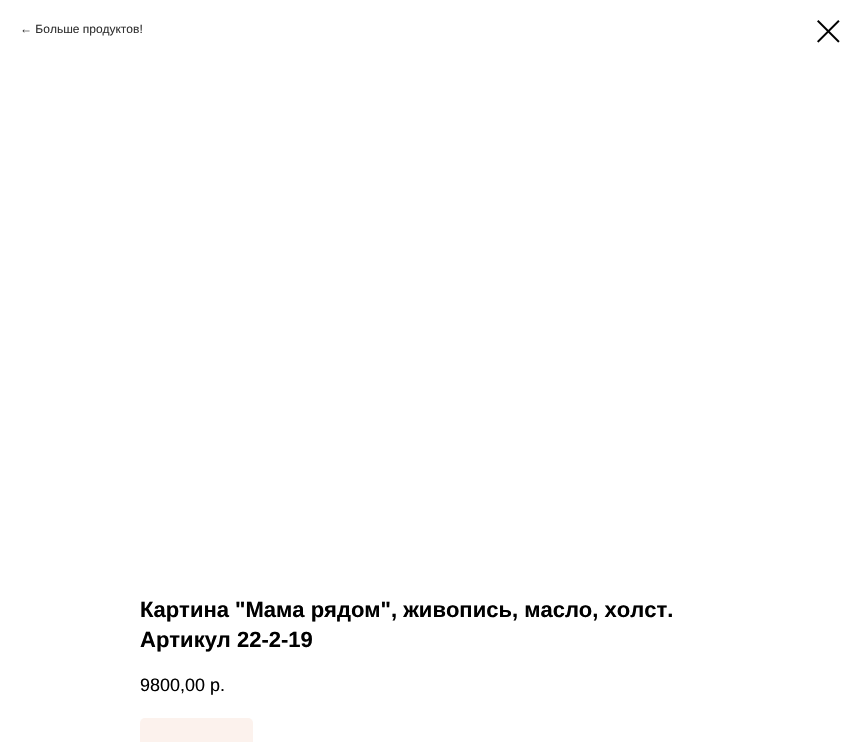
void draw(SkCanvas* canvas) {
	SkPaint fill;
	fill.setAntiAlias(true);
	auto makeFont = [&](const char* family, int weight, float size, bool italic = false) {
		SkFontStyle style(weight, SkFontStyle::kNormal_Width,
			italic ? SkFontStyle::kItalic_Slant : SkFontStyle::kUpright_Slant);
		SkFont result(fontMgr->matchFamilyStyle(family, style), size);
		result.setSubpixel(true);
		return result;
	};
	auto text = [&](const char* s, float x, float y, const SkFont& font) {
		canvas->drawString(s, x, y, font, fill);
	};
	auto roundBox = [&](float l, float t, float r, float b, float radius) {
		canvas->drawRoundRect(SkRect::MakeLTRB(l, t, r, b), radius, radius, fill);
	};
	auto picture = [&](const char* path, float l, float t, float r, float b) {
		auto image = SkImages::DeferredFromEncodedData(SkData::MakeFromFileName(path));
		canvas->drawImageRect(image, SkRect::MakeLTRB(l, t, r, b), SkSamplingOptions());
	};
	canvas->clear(0xFFFFFFFF);
	picture("image0.png", 817, 20, 840, 43);
	fill.setColor(0xFFFCF2ED);
	roundBox(140, 718, 253, 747, 5);
	auto font1 = makeFont("Liberation Sans", 400, 12);
	fill.setColor(0xFF333333);
	text("← Больше продуктов!", 20, 33, font1);
	auto font2 = makeFont("Liberation Sans", 700, 22);
	fill.setColor(0xFF000000);
	text("Картина \"Мама рядом\", живопись, масло, холст.", 140, 617, font2);
	text("Артикул 22-2-19", 140, 647, font2);
	auto font3 = makeFont("Liberation Sans", 400, 18);
	text("9800,00 р.", 140, 691, font3);
}
